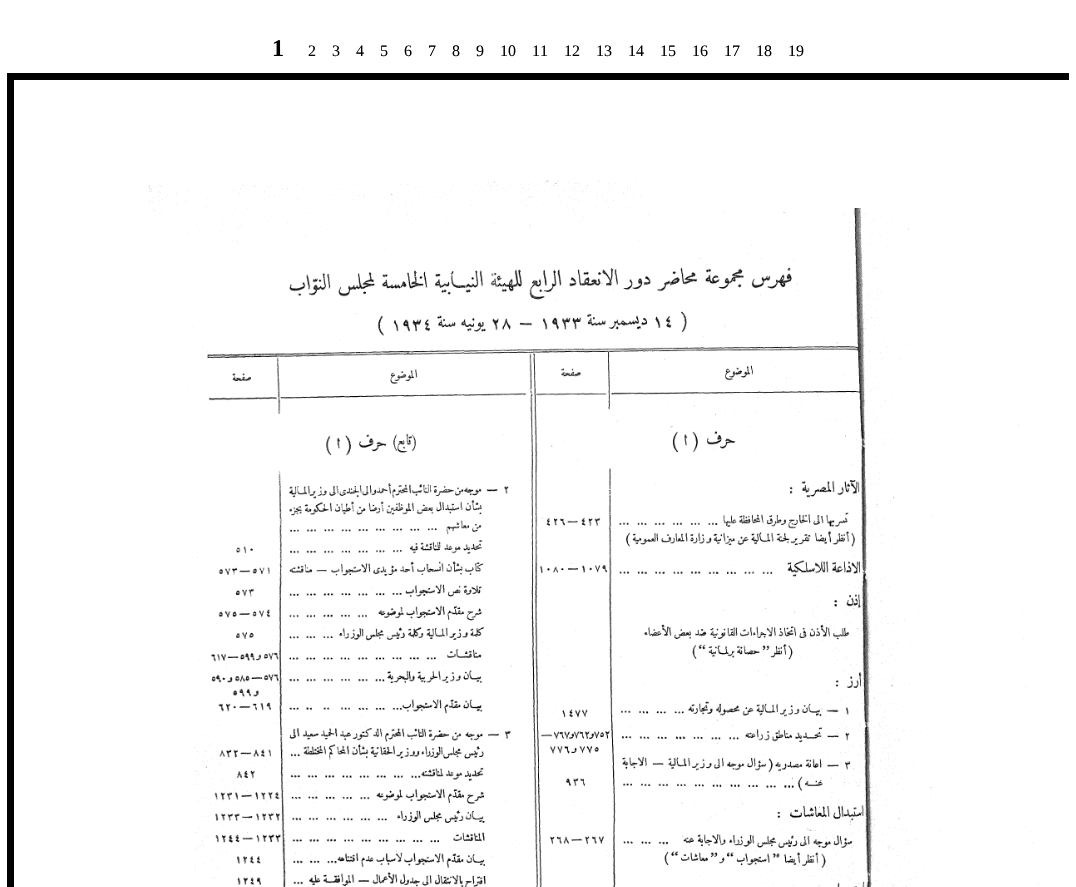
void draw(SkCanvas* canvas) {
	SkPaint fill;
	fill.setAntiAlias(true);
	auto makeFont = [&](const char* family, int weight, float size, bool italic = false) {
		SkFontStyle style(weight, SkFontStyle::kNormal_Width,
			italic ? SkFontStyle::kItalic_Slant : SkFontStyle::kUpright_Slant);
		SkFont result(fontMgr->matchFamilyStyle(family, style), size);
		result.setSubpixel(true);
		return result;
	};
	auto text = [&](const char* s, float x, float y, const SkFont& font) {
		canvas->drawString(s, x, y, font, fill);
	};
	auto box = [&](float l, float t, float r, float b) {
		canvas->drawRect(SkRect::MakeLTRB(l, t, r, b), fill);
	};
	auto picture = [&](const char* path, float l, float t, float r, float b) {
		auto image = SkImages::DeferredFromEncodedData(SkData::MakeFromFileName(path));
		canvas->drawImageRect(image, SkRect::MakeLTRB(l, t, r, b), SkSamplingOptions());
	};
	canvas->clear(0xFFFFFFFF);
	fill.setColor(0xFF000000);
	box(7, 73, 1069, 887);
	picture("image0.png", 14, 80, 1069, 887);
	auto font1 = makeFont("Liberation Serif", 700, 24);
	text("1", 272, 56, font1);
	auto font2 = makeFont("Liberation Serif", 400, 16);
	text("2", 308, 56, font2);
	text("3", 332, 56, font2);
	text("4", 356, 56, font2);
	text("5", 380, 56, font2);
	text("6", 404, 56, font2);
	text("7", 428, 56, font2);
	text("8", 452, 56, font2);
	text("9", 476, 56, font2);
	text("10", 500, 56, font2);
	text("11", 532, 56, font2);
	text("12", 564, 56, font2);
	text("13", 596, 56, font2);
	text("14", 628, 56, font2);
	text("15", 660, 56, font2);
	text("16", 692, 56, font2);
	text("17", 724, 56, font2);
	text("18", 756, 56, font2);
	text("19", 788, 56, font2);
}
